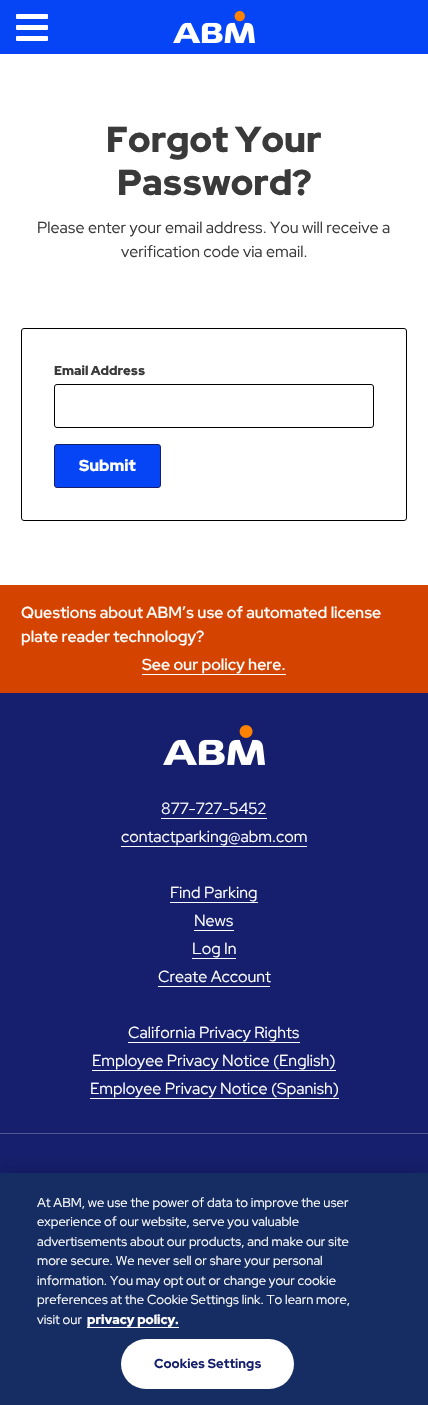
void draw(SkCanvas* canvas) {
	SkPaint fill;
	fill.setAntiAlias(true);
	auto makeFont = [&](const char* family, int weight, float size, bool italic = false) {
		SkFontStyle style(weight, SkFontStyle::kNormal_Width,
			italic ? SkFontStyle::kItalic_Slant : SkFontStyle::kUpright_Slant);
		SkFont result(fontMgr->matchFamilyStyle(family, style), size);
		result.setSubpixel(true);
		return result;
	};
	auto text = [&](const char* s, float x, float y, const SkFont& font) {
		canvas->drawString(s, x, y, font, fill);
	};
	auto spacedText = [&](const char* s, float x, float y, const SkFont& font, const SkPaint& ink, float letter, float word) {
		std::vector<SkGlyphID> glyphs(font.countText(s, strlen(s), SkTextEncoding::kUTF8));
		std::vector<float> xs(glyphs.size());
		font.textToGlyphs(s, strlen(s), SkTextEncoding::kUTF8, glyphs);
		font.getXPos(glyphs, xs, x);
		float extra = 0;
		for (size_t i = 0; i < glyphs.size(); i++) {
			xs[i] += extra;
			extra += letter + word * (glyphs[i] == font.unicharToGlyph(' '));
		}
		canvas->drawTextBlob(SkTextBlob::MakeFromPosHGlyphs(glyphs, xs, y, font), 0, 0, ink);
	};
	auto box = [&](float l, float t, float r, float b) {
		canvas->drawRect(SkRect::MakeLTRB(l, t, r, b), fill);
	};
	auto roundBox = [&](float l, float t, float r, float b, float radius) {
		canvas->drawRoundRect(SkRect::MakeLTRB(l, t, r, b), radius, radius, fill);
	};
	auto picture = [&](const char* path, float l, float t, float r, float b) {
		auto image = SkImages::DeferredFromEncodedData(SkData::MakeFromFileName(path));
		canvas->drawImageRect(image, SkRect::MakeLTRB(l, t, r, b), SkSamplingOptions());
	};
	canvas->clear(0xFF151F6D);
	fill.setColor(0xFF0545F5);
	box(0, 0, 428, 54);
	fill.setColor(0xFFFFFFFF);
	roundBox(16, 14, 48, 19, 1);
	roundBox(16, 25, 48, 30, 1);
	roundBox(16, 36, 48, 41, 1);
	picture("image0.png", 173, 11, 255, 43);
	box(0, 54, 428, 585);
	fill.setStyle(SkPaint::kStroke_Style);
	fill.setStrokeWidth(1);
	fill.setColor(0xFF000000);
	canvas->drawRoundRect(SkRect::MakeLTRB(21.5f, 328.5f, 406.5f, 520.5f), 2.5f, 2.5f, fill);
	canvas->drawRoundRect(SkRect::MakeLTRB(54.5f, 384.5f, 373.5f, 427.5f), 2.5f, 2.5f, fill);
	fill.setStyle(SkPaint::kFill_Style);
	fill.setColor(0xFF0545F5);
	canvas->drawRoundRect(SkRect::MakeLTRB(54.5f, 444.5f, 160.5f, 487.5f), 2.5f, 2.5f, fill);
	fill.setStyle(SkPaint::kStroke_Style);
	fill.setColor(0xFF151F6D);
	canvas->drawRoundRect(SkRect::MakeLTRB(54.5f, 444.5f, 160.5f, 487.5f), 2.5f, 2.5f, fill);
	fill.setStyle(SkPaint::kFill_Style);
	fill.setColor(0xFFD54300);
	box(0, 585, 428, 693);
	fill.setColor(0xFFFFFFFF);
	box(142, 674, 286, 675);
	picture("image1.png", 163, 725, 265, 765);
	box(161, 818, 267, 819);
	box(121, 846, 307, 847);
	box(170, 902, 258, 903);
	box(194, 930, 234, 931);
	box(192, 958, 236, 959);
	box(158, 986, 270, 987);
	box(128, 1042, 300, 1043);
	box(92, 1070, 336, 1071);
	box(90, 1098, 339, 1099);
	fill.setColor(0xFF505792);
	box(0, 1133, 428, 1134);
	fill.setColor(0x33000000);
	fill.setMaskFilter(SkMaskFilter::MakeBlur(kNormal_SkBlurStyle, 9));
	canvas->drawRect(SkRect::MakeLTRB(0, 1173, 428, 1405), fill);
	fill.setMaskFilter(nullptr);
	fill.setColor(0xFF152D62);
	box(0, 1173, 428, 1405);
	fill.setColor(0xFFFFFFFF);
	box(87, 1327, 179, 1328);
	roundBox(121, 1339, 294, 1389, 25);
	auto font1 = makeFont("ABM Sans", 700, 36);
	fill.setColor(0xFF3A3A3A);
	text("Forgot Your", 106, 152, font1);
	text("Password?", 117, 195, font1);
	auto font2 = makeFont("ABM Sans", 400, 16);
	text("Please enter your email address. You will receive a", 37, 233, font2);
	text("verification code via email.", 121, 257, font2);
	auto font3 = makeFont("ABM Sans", 700, 13);
	text("Email Address", 54, 375, font3);
	auto font4 = makeFont("ABM Sans", 700, 16);
	fill.setColor(0xFFFFFFFF);
	text("Submit", 79, 471, font4);
	auto font5 = makeFont("ABM Sans", 500, 16);
	text("Questions about ABM’s use of automated license", 21, 618, font5);
	text("plate reader technology?", 21, 642, font5);
	text("See our policy here.", 142, 670, font5);
	text("877-727-5452", 161, 814, font2);
	text("contactparking@abm.com", 121, 842, font2);
	text("Find Parking", 170, 898, font2);
	text("News", 194, 926, font2);
	text("Log In", 192, 954, font2);
	text("Create Account", 158, 982, font2);
	text("California Privacy Rights", 128, 1038, font2);
	text("Employee Privacy Notice (English)", 92, 1066, font2);
	text("Employee Privacy Notice (Spanish)", 90, 1094, font2);
	auto font6 = makeFont("ABM Sans", 400, 13);
	text("At ABM, we use the power of data to improve the user", 37, 1207, font6);
	text("experience of our website, serve you valuable", 37, 1226, font6);
	text("advertisements about our products, and make our site", 37, 1246, font6);
	text("more secure. We never sell or share your personal", 37, 1265, font6);
	text("information. You may opt out or change your cookie", 37, 1285, font6);
	text("preferences at the Cookie Settings link. To learn more,", 37, 1304, font6);
	text("visit our", 37, 1324, font6);
	text("privacy policy.", 87, 1324, font3);
	auto font7 = makeFont("ABM Sans", 600, 13);
	fill.setColor(0xFF151F6D);
	spacedText("Cookies Settings", 154, 1368, font7, fill, 0.1f, 0);
}
